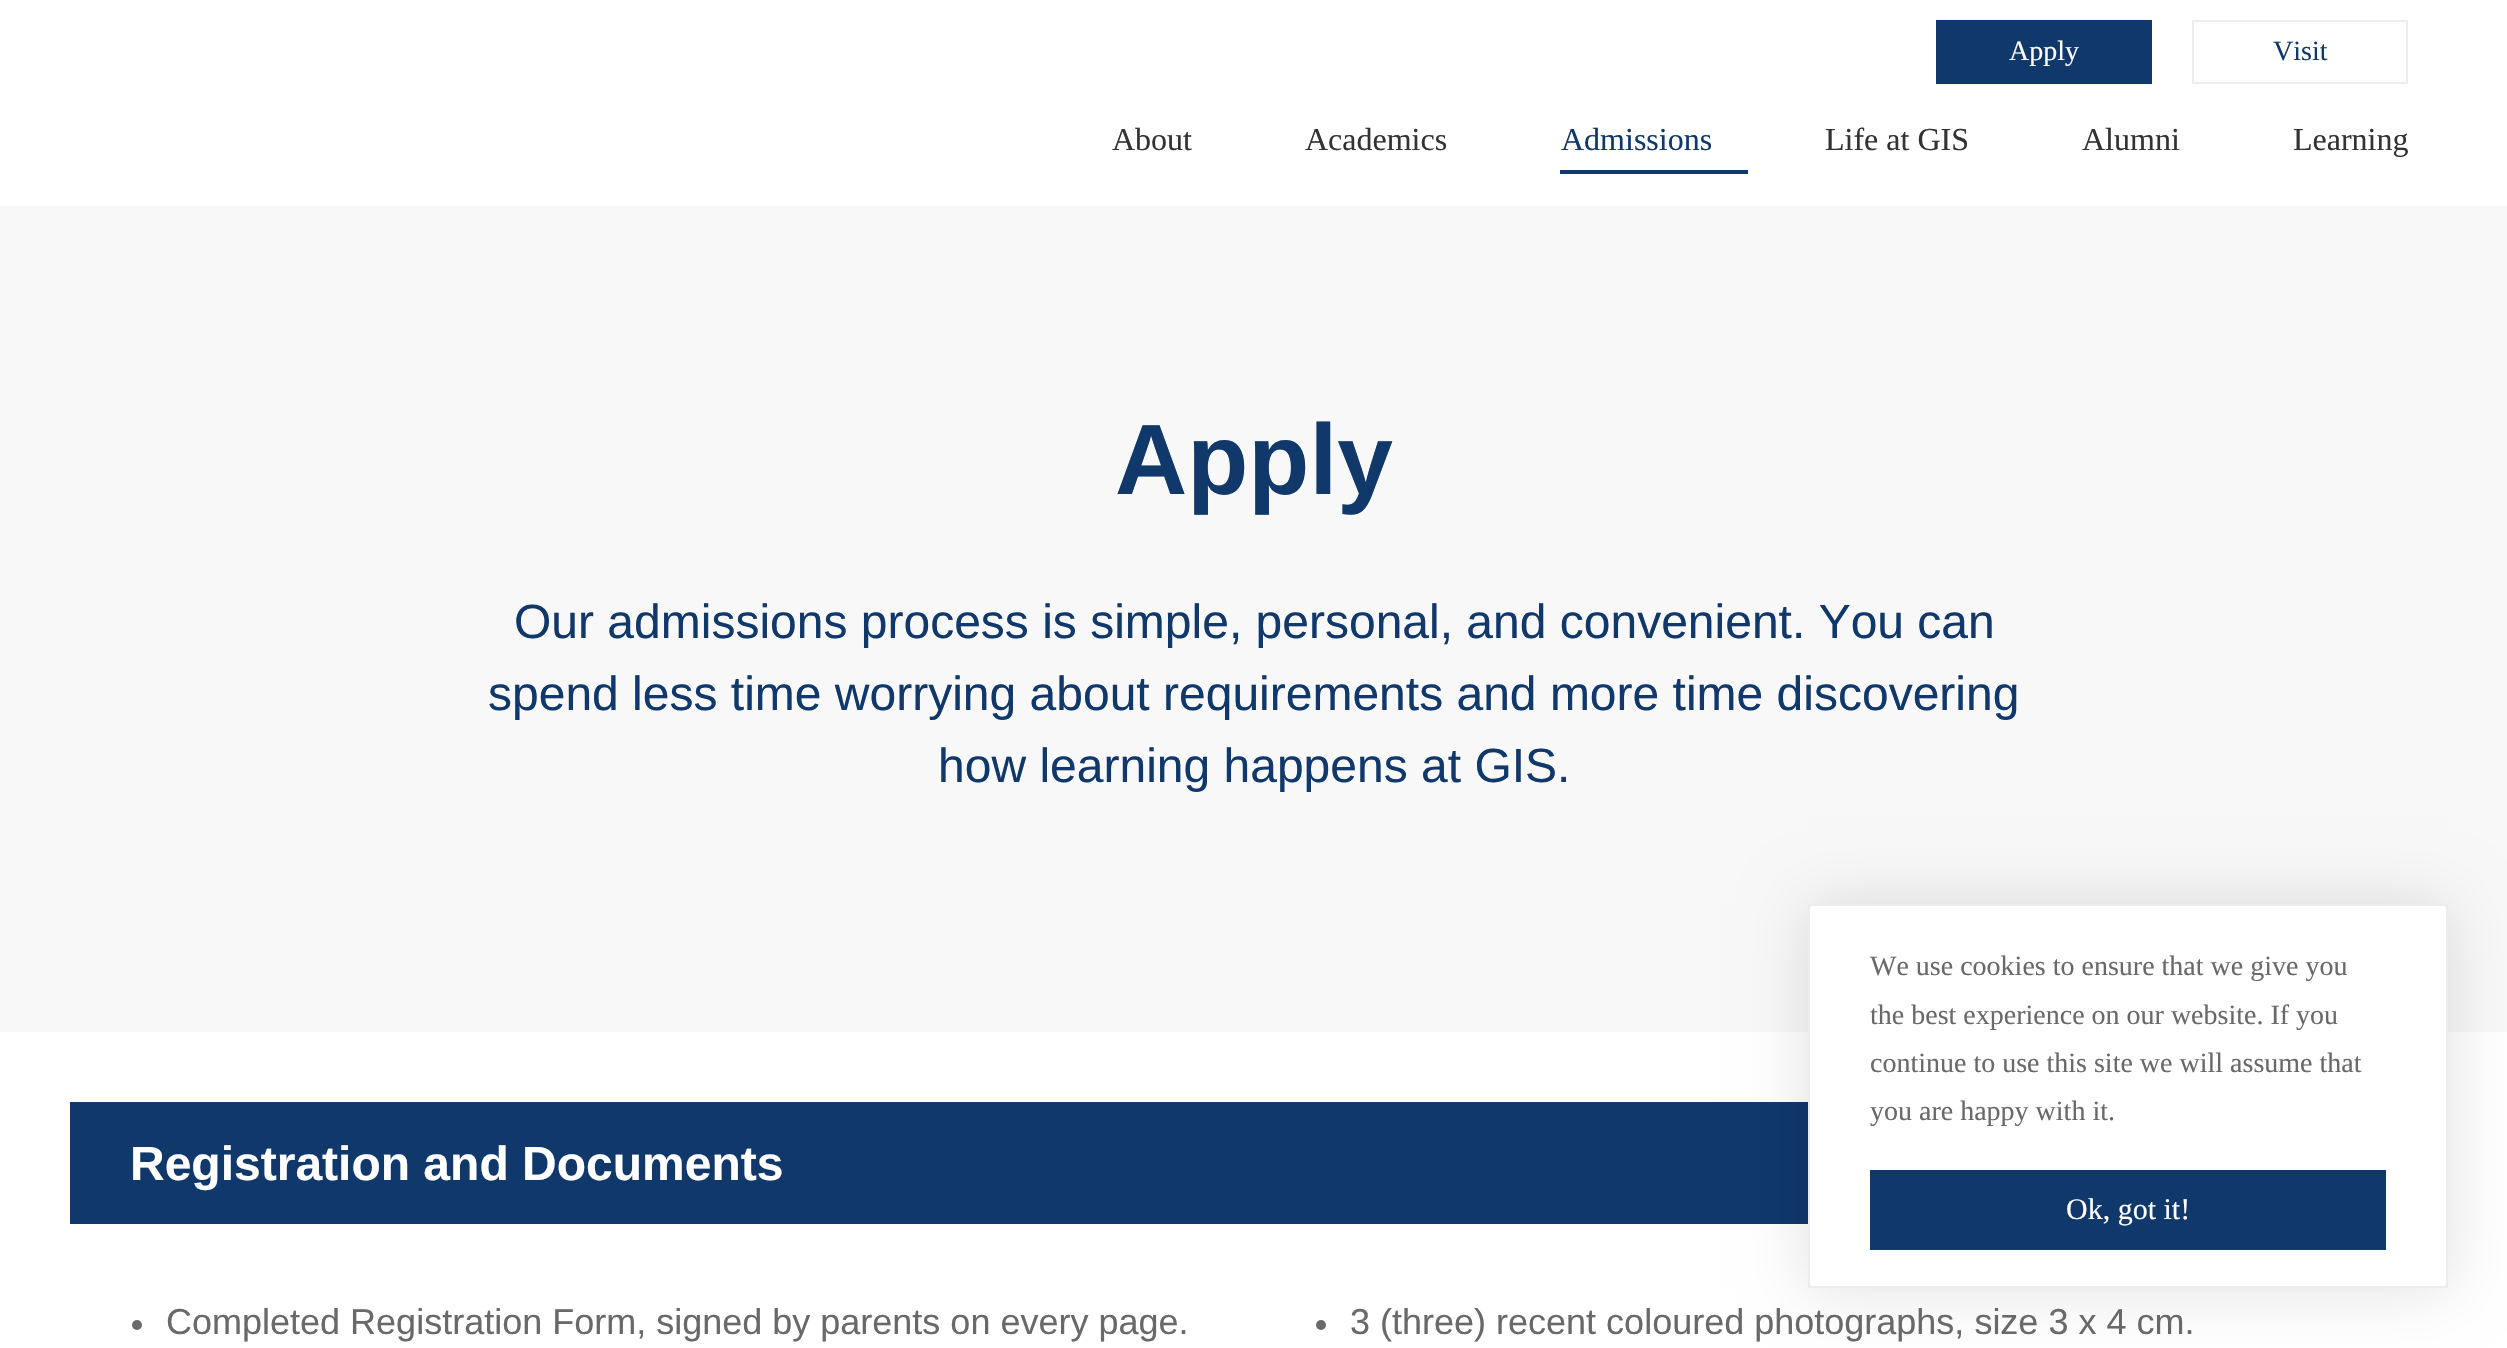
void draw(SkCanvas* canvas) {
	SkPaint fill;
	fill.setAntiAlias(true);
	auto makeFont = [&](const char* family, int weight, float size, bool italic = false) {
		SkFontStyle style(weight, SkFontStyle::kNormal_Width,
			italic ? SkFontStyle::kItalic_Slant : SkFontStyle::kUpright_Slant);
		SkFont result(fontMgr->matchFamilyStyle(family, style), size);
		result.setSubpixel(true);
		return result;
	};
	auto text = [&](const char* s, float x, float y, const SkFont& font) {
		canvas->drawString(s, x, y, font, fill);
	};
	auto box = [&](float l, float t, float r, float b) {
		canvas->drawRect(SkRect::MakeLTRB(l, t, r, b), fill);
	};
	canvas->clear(0xFFFFFFFF);
	fill.setColor(0xFF10386B);
	box(1936, 20, 2152, 84);
	fill.setStyle(SkPaint::kStroke_Style);
	fill.setStrokeWidth(2);
	fill.setColor(0xFFEEEEEE);
	canvas->drawRect(SkRect::MakeLTRB(2193, 21, 2407, 83), fill);
	fill.setStyle(SkPaint::kFill_Style);
	fill.setColor(0xFF10386B);
	box(1560, 170, 1748, 174);
	fill.setColor(0xFFF8F8F8);
	box(0, 206, 2507, 1032);
	fill.setColor(0xFF10386B);
	box(70, 1102, 1808, 1224);
	fill.setColor(0xFF696969);
	canvas->drawCircle(137, 1325, 5, fill);
	canvas->drawCircle(1321, 1325, 5, fill);
	fill.setColor(0x1F000000);
	fill.setMaskFilter(SkMaskFilter::MakeBlur(kNormal_SkBlurStyle, 30));
	canvas->drawRect(SkRect::MakeLTRB(1808, 904, 2448, 1288), fill);
	fill.setMaskFilter(nullptr);
	fill.setColor(0xFFFFFFFF);
	canvas->drawRect(SkRect::MakeLTRB(1809, 905, 2447, 1287), fill);
	fill.setStyle(SkPaint::kStroke_Style);
	fill.setColor(0xFFEDEDED);
	canvas->drawRect(SkRect::MakeLTRB(1809, 905, 2447, 1287), fill);
	fill.setStyle(SkPaint::kFill_Style);
	fill.setColor(0xFF10386B);
	box(1870, 1170, 2386, 1250);
	auto font1 = makeFont("Liberation Serif", 400, 28);
	fill.setColor(0xFFFFFFFF);
	text("Apply", 2009, 60, font1);
	fill.setColor(0xFF10386B);
	text("Visit", 2273, 60, font1);
	auto font2 = makeFont("Liberation Serif", 400, 32);
	fill.setColor(0xFF333333);
	text("About", 1112, 150, font2);
	text("Academics", 1305, 150, font2);
	fill.setColor(0xFF10386B);
	text("Admissions", 1561, 150, font2);
	fill.setColor(0xFF333333);
	text("Life at GIS", 1825, 150, font2);
	text("Alumni", 2082, 150, font2);
	text("Learning", 2293, 150, font2);
	auto font3 = makeFont("Liberation Sans", 700, 100);
	fill.setColor(0xFF10386B);
	text("Apply", 1115, 494, font3);
	auto font4 = makeFont("Liberation Sans", 400, 48);
	text("Our admissions process is simple, personal, and convenient. You can", 514, 638, font4);
	text("spend less time worrying about requirements and more time discovering", 488, 710, font4);
	text("how learning happens at GIS.", 938, 782, font4);
	auto font5 = makeFont("Liberation Sans", 700, 48);
	fill.setColor(0xFFFFFFFF);
	text("Registration and Documents", 130, 1180, font5);
	auto font6 = makeFont("Liberation Sans", 400, 36);
	fill.setColor(0xFF696969);
	text("Completed Registration Form, signed by parents on every page.", 166, 1334, font6);
	text("3 (three) recent coloured photographs, size 3 x 4 cm.", 1350, 1334, font6);
	text("We use cookies to ensure that we give you", 1870, 975, font1);
	text("the best experience on our website. If you", 1870, 1024, font1);
	text("continue to use this site we will assume that", 1870, 1072, font1);
	text("you are happy with it.", 1870, 1120, font1);
	auto font7 = makeFont("Liberation Serif", 400, 30);
	fill.setColor(0xFFFFFFFF);
	text("Ok, got it!", 2066, 1219, font7);
}
